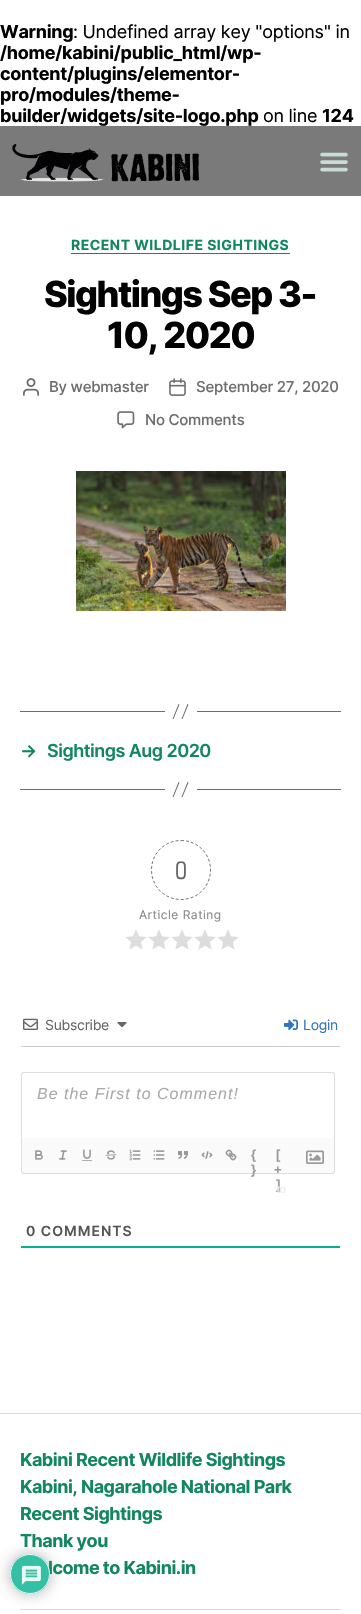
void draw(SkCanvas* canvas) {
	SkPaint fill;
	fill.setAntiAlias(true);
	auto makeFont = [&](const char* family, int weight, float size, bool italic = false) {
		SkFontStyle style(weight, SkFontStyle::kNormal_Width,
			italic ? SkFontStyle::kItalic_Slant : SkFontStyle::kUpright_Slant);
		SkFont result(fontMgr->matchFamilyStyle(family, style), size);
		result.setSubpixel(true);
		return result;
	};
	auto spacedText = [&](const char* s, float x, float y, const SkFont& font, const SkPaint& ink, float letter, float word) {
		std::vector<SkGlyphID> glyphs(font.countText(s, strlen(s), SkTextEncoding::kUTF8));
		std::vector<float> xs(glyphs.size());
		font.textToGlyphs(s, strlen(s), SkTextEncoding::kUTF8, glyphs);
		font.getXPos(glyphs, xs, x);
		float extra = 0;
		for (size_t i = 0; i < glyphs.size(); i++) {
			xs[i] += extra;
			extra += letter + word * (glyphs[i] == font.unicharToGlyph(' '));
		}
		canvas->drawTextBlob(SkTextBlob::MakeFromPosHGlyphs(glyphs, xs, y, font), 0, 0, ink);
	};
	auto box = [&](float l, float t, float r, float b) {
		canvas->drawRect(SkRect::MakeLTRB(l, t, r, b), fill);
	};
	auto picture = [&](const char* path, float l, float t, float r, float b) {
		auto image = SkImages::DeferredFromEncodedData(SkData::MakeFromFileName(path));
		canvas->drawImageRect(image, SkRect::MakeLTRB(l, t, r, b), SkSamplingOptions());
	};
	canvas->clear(0xFFFFFFFF);
	fill.setColor(0xFF7A7A7A);
	box(0, 126, 361, 196);
	picture("image0.png", 12, 144, 199, 182);
	picture("image1.png", 320, 152, 348, 172);
	fill.setColor(0xFF11875E);
	box(71, 253, 290, 254);
	picture("image2.png", 23, 378, 39, 396);
	picture("image3.png", 169, 378, 186, 396);
	picture("image4.png", 117, 411, 135, 429);
	picture("image5.png", 76, 471, 286, 611);
	fill.setColor(0xFF6D6D6D);
	box(197, 711, 341, 712);
	box(20, 711, 165, 712);
	canvas->drawPath(SkPathBuilder().moveTo(178.5f, 704).lineTo(179.5f, 704.5f).lineTo(173.5f, 719).lineTo(172.5f, 719).close().moveTo(187.5f, 704).lineTo(188.5f, 704.5f).lineTo(182.5f, 719).lineTo(181.5f, 719).close().detach(), fill);
	box(197, 789, 341, 790);
	box(20, 789, 165, 790);
	canvas->drawPath(SkPathBuilder().moveTo(178.5f, 782).lineTo(179.5f, 782.5f).lineTo(173.5f, 797).lineTo(172.5f, 797).close().moveTo(187.5f, 782).lineTo(188.5f, 782.5f).lineTo(182.5f, 797).lineTo(181.5f, 797).close().detach(), fill);
	fill.setStyle(SkPaint::kStroke_Style);
	fill.setStrokeWidth(1);
	fill.setColor(0xFF777777);
	fill.setPathEffect(SkDashPathEffect::Make({{3, 2}}, 0));
	canvas->drawPath(SkPathBuilder().moveTo(181, 840.5f).cubicTo(197.5f, 840.5f, 210.5f, 853.5f, 210.5f, 870).cubicTo(210.5f, 886.5f, 197.5f, 899.5f, 181, 899.5f).cubicTo(164.5f, 899.5f, 151.5f, 886.5f, 151.5f, 870).cubicTo(151.5f, 853.5f, 164.5f, 840.5f, 181, 840.5f).close().detach(), fill);
	fill.setPathEffect(nullptr);
	picture("image6.png", 125, 929, 147, 950);
	picture("image6.png", 148, 929, 170, 950);
	picture("image6.png", 171, 929, 193, 950);
	picture("image6.png", 194, 929, 216, 950);
	picture("image6.png", 217, 929, 239, 950);
	fill.setStyle(SkPaint::kFill_Style);
	fill.setColor(0xFFCCCCCC);
	box(21, 1046, 340, 1047);
	picture("image7.png", 23, 1018, 38, 1030);
	picture("image8.png", 117, 1022, 127, 1028);
	picture("image9.png", 284, 1019, 298, 1031);
	fill.setColor(0xFFDDDDDD);
	canvas->drawPath(SkPathBuilder(SkPathFillType::kEvenOdd).moveTo(24, 1072).lineTo(332, 1072).cubicTo(334, 1072, 335, 1073, 335, 1075).lineTo(335, 1138).lineTo(21, 1138).lineTo(21, 1075).cubicTo(21, 1073, 22, 1072, 24, 1072).close().moveTo(24, 1073).lineTo(332, 1073).cubicTo(333, 1073, 334, 1074, 334, 1075).lineTo(334, 1138).lineTo(22, 1138).lineTo(22, 1075).cubicTo(22, 1074, 23, 1073, 24, 1073).close().detach(), fill);
	fill.setColor(0xFFFAFAFA);
	canvas->drawPath(SkPathBuilder().moveTo(21, 1138).lineTo(335, 1138).lineTo(335, 1171).cubicTo(335, 1172.5f, 333.5f, 1174, 332, 1174).lineTo(24, 1174).cubicTo(22.5f, 1174, 21, 1172.5f, 21, 1171).close().detach(), fill);
	fill.setColor(0xFFDDDDDD);
	canvas->drawPath(SkPathBuilder(SkPathFillType::kEvenOdd).moveTo(21, 1138).lineTo(335, 1138).lineTo(335, 1171).cubicTo(335, 1173, 334, 1174, 332, 1174).lineTo(24, 1174).cubicTo(22, 1174, 21, 1173, 21, 1171).close().moveTo(22, 1138).lineTo(334, 1138).lineTo(334, 1171).cubicTo(334, 1172, 333, 1173, 332, 1173).lineTo(24, 1173).cubicTo(23, 1173, 22, 1172, 22, 1171).close().detach(), fill);
	picture("image10.png", 35, 1150, 43, 1160);
	picture("image11.png", 59, 1150, 67, 1160);
	picture("image12.png", 82, 1149, 92, 1161);
	picture("image13.png", 105, 1150, 117, 1160);
	picture("image14.png", 129, 1149, 141, 1161);
	picture("image15.png", 153, 1150, 165, 1160);
	picture("image16.png", 178, 1151, 188, 1159);
	picture("image17.png", 201, 1151, 213, 1159);
	picture("image18.png", 225, 1149, 237, 1161);
	picture("image19.png", 306, 1150, 324, 1164);
	fill.setColor(0xFF00B38F);
	box(21, 1246, 340, 1248);
	fill.setColor(0xFFDBDBDB);
	box(0, 1413, 361, 1414);
	box(20, 1609, 341, 1610);
	canvas->save();
	canvas->clipPath(SkPathBuilder(SkPathFillType::kEvenOdd).moveTo(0, 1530).lineTo(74, 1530).lineTo(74, 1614).lineTo(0, 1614).close().moveTo(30, 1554).cubicTo(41, 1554, 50, 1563, 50, 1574).cubicTo(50, 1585, 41, 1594, 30, 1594).cubicTo(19, 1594, 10, 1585, 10, 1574).cubicTo(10, 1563, 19, 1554, 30, 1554).close().detach(), true);
	fill.setColor(0xE6AAAAAA);
	fill.setMaskFilter(SkMaskFilter::MakeBlur(kNormal_SkBlurStyle, 7.5f));
	canvas->drawRoundRect(SkRect::MakeLTRB(10, 1554, 50, 1594), 20, 20, fill);
	fill.setMaskFilter(nullptr);
	canvas->restore();
	auto font1 = makeFont("Inter", 700, 18);
	fill.setColor(0xFF000000);
	spacedText("Warning", 0, 38, font1, fill, -0.25f, 0);
	auto font2 = makeFont("Inter", 400, 18);
	spacedText(": Undefined array key \"options\" in", 73, 38, font2, fill, -0.25f, 0);
	spacedText("/home/kabini/public_html/wp-", 0, 59, font1, fill, -0.25f, 0);
	spacedText("content/plugins/elementor-", 0, 80, font1, fill, -0.25f, 0);
	spacedText("pro/modules/theme-", 0, 101, font1, fill, -0.25f, 0);
	spacedText("builder/widgets/site-logo.php", 0, 122, font1, fill, -0.25f, 0);
	spacedText("on line", 263, 122, font2, fill, -0.25f, 0);
	spacedText("124", 322, 122, font1, fill, -0.25f, 0);
	auto font3 = makeFont("Inter", 700, 14);
	fill.setColor(0xFF11875E);
	spacedText("RECENT WILDLIFE SIGHTINGS", 71, 250, font3, fill, 0.5f, 0);
	auto font4 = makeFont("Inter", 800, 36);
	fill.setColor(0xFF000000);
	spacedText("Sightings Sep 3-", 44, 307, font4, fill, -1.5f, 0);
	spacedText("10, 2020", 107, 348, font4, fill, -1.5f, 0);
	auto font5 = makeFont("Inter", 500, 15);
	fill.setColor(0xFF6D6D6D);
	spacedText("By webmaster", 49, 392, font5, fill, -0.25f, 0);
	spacedText("September 27, 2020", 196, 392, font5, fill, -0.25f, 0);
	spacedText("No Comments", 145, 425, font5, fill, -0.25f, 0);
	auto font6 = makeFont("Inter", 600, 18);
	fill.setColor(0xFF11875E);
	spacedText("→", 20, 757, font6, fill, -0.5f, 0);
	spacedText("Sightings Aug 2020", 47, 757, font6, fill, -0.5f, 0);
	auto font7 = makeFont("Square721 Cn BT", 400, 24);
	fill.setColor(0xFF666666);
	spacedText("0", 175, 879, font7, fill, -0.25f, 0);
	auto font8 = makeFont("Inter", 400, 12);
	fill.setColor(0xFF888888);
	spacedText("Article Rating", 139, 919, font8, fill, 0.5f, 0);
	auto font9 = makeFont("Inter", 400, 14);
	fill.setColor(0xFF666666);
	spacedText("Subscribe", 45, 1030, font9, fill, -0.25f, 0);
	fill.setColor(0xFF3272BF);
	spacedText("Login", 303, 1030, font9, fill, -0.25f, 0);
	auto font10 = makeFont("Liberation Sans", 400, 16, true);
	fill.setColor(0xFFAAAAAA);
	spacedText("Be the First to Comment!", 37, 1099, font10, fill, 1, 0);
	auto font11 = makeFont("Liberation Sans", 700, 13);
	fill.setColor(0xFF999999);
	spacedText("{", 251, 1159, font11, fill, 2, 0);
	spacedText("}", 251, 1174, font11, fill, 2, 0);
	spacedText("[", 276, 1159, font11, fill, 2, 0);
	spacedText("+", 274, 1174, font11, fill, 2, 0);
	spacedText("]", 276, 1189, font11, fill, 2, 0);
	auto font12 = makeFont("Liberation Sans", 400, 11);
	fill.setColor(0xFFEAEAEA);
	spacedText("to", 277, 1193, font12, fill, -0.25f, 0);
	auto font13 = makeFont("Inter", 600, 14);
	fill.setColor(0xFF555555);
	spacedText("0 COMMENTS", 26, 1236, font13, fill, 1, 0);
	fill.setColor(0xFF11875E);
	spacedText("Kabini Recent Wildlife Sightings", 20, 1466, font1, fill, -0.5f, 0);
	spacedText("Kabini, Nagarahole National Park", 20, 1493, font1, fill, -0.5f, 0);
	spacedText("Recent Sightings", 20, 1520, font1, fill, -0.5f, 0);
	spacedText("Thank you", 20, 1547, font1, fill, -0.5f, 0);
	spacedText("lcome to Kabini.in", 48, 1574, font1, fill, -0.5f, 0);
	fill.setColor(0xE61DB99A);
	canvas->drawCircle(30, 1574, 20, fill);
	fill.setStyle(SkPaint::kStroke_Style);
	fill.setColor(0xE6FFFFFF);
	canvas->drawCircle(30, 1574, 19.5f, fill);
	picture("image20.png", 21, 1565, 41, 1585);
}
